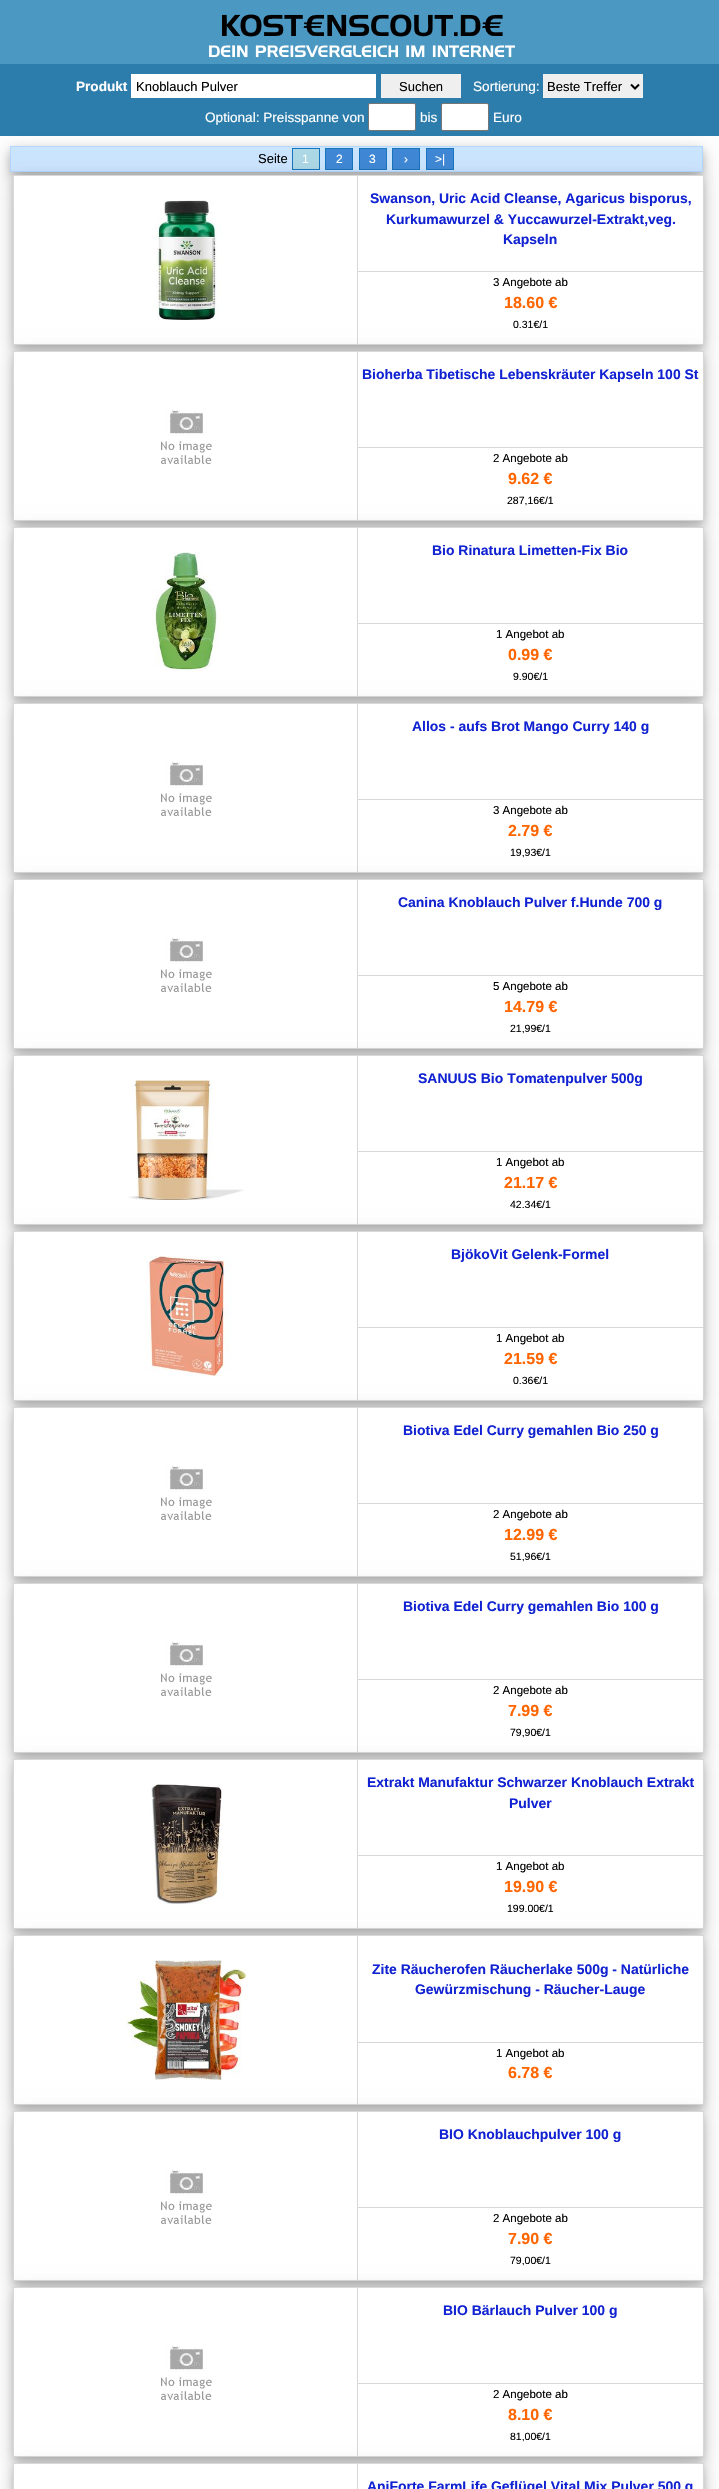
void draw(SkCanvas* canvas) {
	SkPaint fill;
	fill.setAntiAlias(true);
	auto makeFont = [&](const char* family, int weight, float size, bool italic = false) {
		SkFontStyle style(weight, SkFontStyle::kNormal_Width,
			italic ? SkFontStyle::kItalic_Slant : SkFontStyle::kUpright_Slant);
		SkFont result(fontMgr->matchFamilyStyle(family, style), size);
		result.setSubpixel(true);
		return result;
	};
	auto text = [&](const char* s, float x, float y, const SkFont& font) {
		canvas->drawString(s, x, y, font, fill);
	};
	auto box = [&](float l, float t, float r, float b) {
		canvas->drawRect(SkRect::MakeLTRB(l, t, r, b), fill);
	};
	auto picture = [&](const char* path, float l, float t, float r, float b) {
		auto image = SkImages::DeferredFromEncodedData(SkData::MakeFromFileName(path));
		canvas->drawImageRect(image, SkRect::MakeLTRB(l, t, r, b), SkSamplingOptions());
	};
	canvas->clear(0xFFFFFFFF);
	fill.setColor(0xFF4B98C2);
	box(0, 0, 719, 64);
	picture("image0.png", 209, 14, 515, 58);
	fill.setColor(0xFF2C7DAC);
	box(0, 64, 719, 136);
	fill.setColor(0xFFFFFFFF);
	box(131, 74, 376, 98);
	fill.setColor(0xFFEFEFEF);
	box(381, 74, 461, 98);
	box(543, 74, 643, 98);
	fill.setStyle(SkPaint::kStroke_Style);
	fill.setStrokeWidth(2);
	fill.setColor(0xFF000000);
	canvas->drawPath(SkPathBuilder().moveTo(631, 84.5f).lineTo(635, 88.5f).lineTo(639, 84.5f).detach(), fill);
	fill.setStyle(SkPaint::kFill_Style);
	fill.setColor(0x30000000);
	fill.setMaskFilter(SkMaskFilter::MakeBlur(kNormal_SkBlurStyle, 10));
	canvas->drawRect(SkRect::MakeLTRB(10, 152, 703, 178), fill);
	fill.setMaskFilter(nullptr);
	fill.setColor(0xFFFFFFFF);
	canvas->drawRoundRect(SkRect::MakeLTRB(368.5f, 103.5f, 415.5f, 130.5f), 1.5f, 1.5f, fill);
	fill.setStyle(SkPaint::kStroke_Style);
	fill.setStrokeWidth(1);
	fill.setColor(0xFF767676);
	canvas->drawRoundRect(SkRect::MakeLTRB(368.5f, 103.5f, 415.5f, 130.5f), 1.5f, 1.5f, fill);
	fill.setStyle(SkPaint::kFill_Style);
	fill.setColor(0xFFFFFFFF);
	canvas->drawRoundRect(SkRect::MakeLTRB(441.5f, 103.5f, 488.5f, 130.5f), 1.5f, 1.5f, fill);
	fill.setStyle(SkPaint::kStroke_Style);
	fill.setColor(0xFF767676);
	canvas->drawRoundRect(SkRect::MakeLTRB(441.5f, 103.5f, 488.5f, 130.5f), 1.5f, 1.5f, fill);
	fill.setStyle(SkPaint::kFill_Style);
	fill.setColor(0x33000000);
	fill.setMaskFilter(SkMaskFilter::MakeBlur(kNormal_SkBlurStyle, 4));
	canvas->drawRect(SkRect::MakeLTRB(10, 150, 703, 176), fill);
	fill.setMaskFilter(nullptr);
	fill.setColor(0xFFCCE5FF);
	canvas->drawRect(SkRect::MakeLTRB(10.5f, 146.5f, 702.5f, 171.5f), fill);
	fill.setStyle(SkPaint::kStroke_Style);
	fill.setColor(0xFFB3D7FF);
	canvas->drawRect(SkRect::MakeLTRB(10.5f, 146.5f, 702.5f, 171.5f), fill);
	fill.setStyle(SkPaint::kFill_Style);
	fill.setColor(0xFFADD8E6);
	box(293, 149, 319, 169);
	fill.setStyle(SkPaint::kStroke_Style);
	fill.setColor(0xFF1773BC);
	canvas->drawRect(SkRect::MakeLTRB(292.5f, 148.5f, 319.5f, 169.5f), fill);
	fill.setStyle(SkPaint::kFill_Style);
	fill.setColor(0xFF3F88D5);
	box(326, 149, 352, 169);
	fill.setStyle(SkPaint::kStroke_Style);
	fill.setColor(0xFF1773BC);
	canvas->drawRect(SkRect::MakeLTRB(325.5f, 148.5f, 352.5f, 169.5f), fill);
	fill.setStyle(SkPaint::kFill_Style);
	fill.setColor(0xFF3F88D5);
	box(360, 149, 386, 169);
	fill.setStyle(SkPaint::kStroke_Style);
	fill.setColor(0xFF1773BC);
	canvas->drawRect(SkRect::MakeLTRB(359.5f, 148.5f, 386.5f, 169.5f), fill);
	fill.setStyle(SkPaint::kFill_Style);
	fill.setColor(0xFF3F88D5);
	box(393, 149, 419, 169);
	fill.setStyle(SkPaint::kStroke_Style);
	fill.setColor(0xFF1773BC);
	canvas->drawRect(SkRect::MakeLTRB(392.5f, 148.5f, 419.5f, 169.5f), fill);
	fill.setStyle(SkPaint::kFill_Style);
	fill.setColor(0xFF3F88D5);
	box(427, 149, 453, 169);
	fill.setStyle(SkPaint::kStroke_Style);
	fill.setColor(0xFF1773BC);
	canvas->drawRect(SkRect::MakeLTRB(426.5f, 148.5f, 453.5f, 169.5f), fill);
	fill.setStyle(SkPaint::kFill_Style);
	fill.setColor(0x30000000);
	fill.setMaskFilter(SkMaskFilter::MakeBlur(kNormal_SkBlurStyle, 10));
	canvas->drawRect(SkRect::MakeLTRB(13, 181, 704, 351), fill);
	fill.setMaskFilter(nullptr);
	fill.setColor(0x33000000);
	fill.setMaskFilter(SkMaskFilter::MakeBlur(kNormal_SkBlurStyle, 4));
	canvas->drawRect(SkRect::MakeLTRB(13, 179, 704, 349), fill);
	fill.setMaskFilter(nullptr);
	fill.setColor(0xFFFFFFFF);
	canvas->drawRect(SkRect::MakeLTRB(13.5f, 175.5f, 703.5f, 344.5f), fill);
	fill.setStyle(SkPaint::kStroke_Style);
	fill.setColor(0xFFD8D8D6);
	canvas->drawRect(SkRect::MakeLTRB(13.5f, 175.5f, 703.5f, 344.5f), fill);
	fill.setStyle(SkPaint::kFill_Style);
	box(357, 176, 358, 344);
	picture("image1.png", 155, 200, 222, 320);
	box(358, 271, 703, 272);
	fill.setColor(0x30000000);
	fill.setMaskFilter(SkMaskFilter::MakeBlur(kNormal_SkBlurStyle, 10));
	canvas->drawRect(SkRect::MakeLTRB(13, 357, 704, 527), fill);
	fill.setMaskFilter(nullptr);
	fill.setColor(0x33000000);
	fill.setMaskFilter(SkMaskFilter::MakeBlur(kNormal_SkBlurStyle, 4));
	canvas->drawRect(SkRect::MakeLTRB(13, 355, 704, 525), fill);
	fill.setMaskFilter(nullptr);
	fill.setColor(0xFFFFFFFF);
	canvas->drawRect(SkRect::MakeLTRB(13.5f, 351.5f, 703.5f, 520.5f), fill);
	fill.setStyle(SkPaint::kStroke_Style);
	fill.setColor(0xFFD8D8D6);
	canvas->drawRect(SkRect::MakeLTRB(13.5f, 351.5f, 703.5f, 520.5f), fill);
	fill.setStyle(SkPaint::kFill_Style);
	box(357, 352, 358, 520);
	picture("image2.png", 161, 410, 212, 464);
	box(358, 447, 703, 448);
	fill.setColor(0x30000000);
	fill.setMaskFilter(SkMaskFilter::MakeBlur(kNormal_SkBlurStyle, 10));
	canvas->drawRect(SkRect::MakeLTRB(13, 533, 704, 703), fill);
	fill.setMaskFilter(nullptr);
	fill.setColor(0x33000000);
	fill.setMaskFilter(SkMaskFilter::MakeBlur(kNormal_SkBlurStyle, 4));
	canvas->drawRect(SkRect::MakeLTRB(13, 531, 704, 701), fill);
	fill.setMaskFilter(nullptr);
	fill.setColor(0xFFFFFFFF);
	canvas->drawRect(SkRect::MakeLTRB(13.5f, 527.5f, 703.5f, 696.5f), fill);
	fill.setStyle(SkPaint::kStroke_Style);
	fill.setColor(0xFFD8D8D6);
	canvas->drawRect(SkRect::MakeLTRB(13.5f, 527.5f, 703.5f, 696.5f), fill);
	fill.setStyle(SkPaint::kFill_Style);
	box(357, 528, 358, 696);
	picture("image3.png", 155, 552, 221, 672);
	box(358, 623, 703, 624);
	fill.setColor(0x30000000);
	fill.setMaskFilter(SkMaskFilter::MakeBlur(kNormal_SkBlurStyle, 10));
	canvas->drawRect(SkRect::MakeLTRB(13, 709, 704, 879), fill);
	fill.setMaskFilter(nullptr);
	fill.setColor(0x33000000);
	fill.setMaskFilter(SkMaskFilter::MakeBlur(kNormal_SkBlurStyle, 4));
	canvas->drawRect(SkRect::MakeLTRB(13, 707, 704, 877), fill);
	fill.setMaskFilter(nullptr);
	fill.setColor(0xFFFFFFFF);
	canvas->drawRect(SkRect::MakeLTRB(13.5f, 703.5f, 703.5f, 872.5f), fill);
	fill.setStyle(SkPaint::kStroke_Style);
	fill.setColor(0xFFD8D8D6);
	canvas->drawRect(SkRect::MakeLTRB(13.5f, 703.5f, 703.5f, 872.5f), fill);
	fill.setStyle(SkPaint::kFill_Style);
	box(357, 704, 358, 872);
	picture("image2.png", 161, 762, 212, 816);
	box(358, 799, 703, 800);
	fill.setColor(0x30000000);
	fill.setMaskFilter(SkMaskFilter::MakeBlur(kNormal_SkBlurStyle, 10));
	canvas->drawRect(SkRect::MakeLTRB(13, 885, 704, 1055), fill);
	fill.setMaskFilter(nullptr);
	fill.setColor(0x33000000);
	fill.setMaskFilter(SkMaskFilter::MakeBlur(kNormal_SkBlurStyle, 4));
	canvas->drawRect(SkRect::MakeLTRB(13, 883, 704, 1053), fill);
	fill.setMaskFilter(nullptr);
	fill.setColor(0xFFFFFFFF);
	canvas->drawRect(SkRect::MakeLTRB(13.5f, 879.5f, 703.5f, 1048.5f), fill);
	fill.setStyle(SkPaint::kStroke_Style);
	fill.setColor(0xFFD8D8D6);
	canvas->drawRect(SkRect::MakeLTRB(13.5f, 879.5f, 703.5f, 1048.5f), fill);
	fill.setStyle(SkPaint::kFill_Style);
	box(357, 880, 358, 1048);
	picture("image2.png", 161, 938, 212, 992);
	box(358, 975, 703, 976);
	fill.setColor(0x30000000);
	fill.setMaskFilter(SkMaskFilter::MakeBlur(kNormal_SkBlurStyle, 10));
	canvas->drawRect(SkRect::MakeLTRB(13, 1061, 704, 1231), fill);
	fill.setMaskFilter(nullptr);
	fill.setColor(0x33000000);
	fill.setMaskFilter(SkMaskFilter::MakeBlur(kNormal_SkBlurStyle, 4));
	canvas->drawRect(SkRect::MakeLTRB(13, 1059, 704, 1229), fill);
	fill.setMaskFilter(nullptr);
	fill.setColor(0xFFFFFFFF);
	canvas->drawRect(SkRect::MakeLTRB(13.5f, 1055.5f, 703.5f, 1224.5f), fill);
	fill.setStyle(SkPaint::kStroke_Style);
	fill.setColor(0xFFD8D8D6);
	canvas->drawRect(SkRect::MakeLTRB(13.5f, 1055.5f, 703.5f, 1224.5f), fill);
	fill.setStyle(SkPaint::kFill_Style);
	box(357, 1056, 358, 1224);
	picture("image4.png", 128, 1080, 244, 1200);
	box(358, 1151, 703, 1152);
	fill.setColor(0x30000000);
	fill.setMaskFilter(SkMaskFilter::MakeBlur(kNormal_SkBlurStyle, 10));
	canvas->drawRect(SkRect::MakeLTRB(13, 1237, 704, 1407), fill);
	fill.setMaskFilter(nullptr);
	fill.setColor(0x33000000);
	fill.setMaskFilter(SkMaskFilter::MakeBlur(kNormal_SkBlurStyle, 4));
	canvas->drawRect(SkRect::MakeLTRB(13, 1235, 704, 1405), fill);
	fill.setMaskFilter(nullptr);
	fill.setColor(0xFFFFFFFF);
	canvas->drawRect(SkRect::MakeLTRB(13.5f, 1231.5f, 703.5f, 1400.5f), fill);
	fill.setStyle(SkPaint::kStroke_Style);
	fill.setColor(0xFFD8D8D6);
	canvas->drawRect(SkRect::MakeLTRB(13.5f, 1231.5f, 703.5f, 1400.5f), fill);
	fill.setStyle(SkPaint::kFill_Style);
	box(357, 1232, 358, 1400);
	picture("image5.png", 145, 1256, 232, 1376);
	box(358, 1327, 703, 1328);
	fill.setColor(0x30000000);
	fill.setMaskFilter(SkMaskFilter::MakeBlur(kNormal_SkBlurStyle, 10));
	canvas->drawRect(SkRect::MakeLTRB(13, 1413, 704, 1583), fill);
	fill.setMaskFilter(nullptr);
	fill.setColor(0x33000000);
	fill.setMaskFilter(SkMaskFilter::MakeBlur(kNormal_SkBlurStyle, 4));
	canvas->drawRect(SkRect::MakeLTRB(13, 1411, 704, 1581), fill);
	fill.setMaskFilter(nullptr);
	fill.setColor(0xFFFFFFFF);
	canvas->drawRect(SkRect::MakeLTRB(13.5f, 1407.5f, 703.5f, 1576.5f), fill);
	fill.setStyle(SkPaint::kStroke_Style);
	fill.setColor(0xFFD8D8D6);
	canvas->drawRect(SkRect::MakeLTRB(13.5f, 1407.5f, 703.5f, 1576.5f), fill);
	fill.setStyle(SkPaint::kFill_Style);
	box(357, 1408, 358, 1576);
	picture("image2.png", 161, 1466, 212, 1520);
	box(358, 1503, 703, 1504);
	fill.setColor(0x30000000);
	fill.setMaskFilter(SkMaskFilter::MakeBlur(kNormal_SkBlurStyle, 10));
	canvas->drawRect(SkRect::MakeLTRB(13, 1589, 704, 1759), fill);
	fill.setMaskFilter(nullptr);
	fill.setColor(0x33000000);
	fill.setMaskFilter(SkMaskFilter::MakeBlur(kNormal_SkBlurStyle, 4));
	canvas->drawRect(SkRect::MakeLTRB(13, 1587, 704, 1757), fill);
	fill.setMaskFilter(nullptr);
	fill.setColor(0xFFFFFFFF);
	canvas->drawRect(SkRect::MakeLTRB(13.5f, 1583.5f, 703.5f, 1752.5f), fill);
	fill.setStyle(SkPaint::kStroke_Style);
	fill.setColor(0xFFD8D8D6);
	canvas->drawRect(SkRect::MakeLTRB(13.5f, 1583.5f, 703.5f, 1752.5f), fill);
	fill.setStyle(SkPaint::kFill_Style);
	box(357, 1584, 358, 1752);
	picture("image2.png", 161, 1642, 212, 1696);
	box(358, 1679, 703, 1680);
	fill.setColor(0x30000000);
	fill.setMaskFilter(SkMaskFilter::MakeBlur(kNormal_SkBlurStyle, 10));
	canvas->drawRect(SkRect::MakeLTRB(13, 1765, 704, 1935), fill);
	fill.setMaskFilter(nullptr);
	fill.setColor(0x33000000);
	fill.setMaskFilter(SkMaskFilter::MakeBlur(kNormal_SkBlurStyle, 4));
	canvas->drawRect(SkRect::MakeLTRB(13, 1763, 704, 1933), fill);
	fill.setMaskFilter(nullptr);
	fill.setColor(0xFFFFFFFF);
	canvas->drawRect(SkRect::MakeLTRB(13.5f, 1759.5f, 703.5f, 1928.5f), fill);
	fill.setStyle(SkPaint::kStroke_Style);
	fill.setColor(0xFFD8D8D6);
	canvas->drawRect(SkRect::MakeLTRB(13.5f, 1759.5f, 703.5f, 1928.5f), fill);
	fill.setStyle(SkPaint::kFill_Style);
	box(357, 1760, 358, 1928);
	picture("image6.png", 151, 1784, 222, 1904);
	box(358, 1855, 703, 1856);
	fill.setColor(0x30000000);
	fill.setMaskFilter(SkMaskFilter::MakeBlur(kNormal_SkBlurStyle, 10));
	canvas->drawRect(SkRect::MakeLTRB(13, 1941, 704, 2111), fill);
	fill.setMaskFilter(nullptr);
	fill.setColor(0x33000000);
	fill.setMaskFilter(SkMaskFilter::MakeBlur(kNormal_SkBlurStyle, 4));
	canvas->drawRect(SkRect::MakeLTRB(13, 1939, 704, 2109), fill);
	fill.setMaskFilter(nullptr);
	fill.setColor(0xFFFFFFFF);
	canvas->drawRect(SkRect::MakeLTRB(13.5f, 1935.5f, 703.5f, 2104.5f), fill);
	fill.setStyle(SkPaint::kStroke_Style);
	fill.setColor(0xFFD8D8D6);
	canvas->drawRect(SkRect::MakeLTRB(13.5f, 1935.5f, 703.5f, 2104.5f), fill);
	fill.setStyle(SkPaint::kFill_Style);
	box(357, 1936, 358, 2104);
	picture("image7.png", 126, 1960, 246, 2080);
	box(358, 2042, 703, 2043);
	fill.setColor(0x30000000);
	fill.setMaskFilter(SkMaskFilter::MakeBlur(kNormal_SkBlurStyle, 10));
	canvas->drawRect(SkRect::MakeLTRB(13, 2117, 704, 2287), fill);
	fill.setMaskFilter(nullptr);
	fill.setColor(0x33000000);
	fill.setMaskFilter(SkMaskFilter::MakeBlur(kNormal_SkBlurStyle, 4));
	canvas->drawRect(SkRect::MakeLTRB(13, 2115, 704, 2285), fill);
	fill.setMaskFilter(nullptr);
	fill.setColor(0xFFFFFFFF);
	canvas->drawRect(SkRect::MakeLTRB(13.5f, 2111.5f, 703.5f, 2280.5f), fill);
	fill.setStyle(SkPaint::kStroke_Style);
	fill.setColor(0xFFD8D8D6);
	canvas->drawRect(SkRect::MakeLTRB(13.5f, 2111.5f, 703.5f, 2280.5f), fill);
	fill.setStyle(SkPaint::kFill_Style);
	box(357, 2112, 358, 2280);
	picture("image2.png", 161, 2170, 212, 2224);
	box(358, 2207, 703, 2208);
	fill.setColor(0x30000000);
	fill.setMaskFilter(SkMaskFilter::MakeBlur(kNormal_SkBlurStyle, 10));
	canvas->drawRect(SkRect::MakeLTRB(13, 2293, 704, 2463), fill);
	fill.setMaskFilter(nullptr);
	fill.setColor(0x33000000);
	fill.setMaskFilter(SkMaskFilter::MakeBlur(kNormal_SkBlurStyle, 4));
	canvas->drawRect(SkRect::MakeLTRB(13, 2291, 704, 2461), fill);
	fill.setMaskFilter(nullptr);
	fill.setColor(0xFFFFFFFF);
	canvas->drawRect(SkRect::MakeLTRB(13.5f, 2287.5f, 703.5f, 2456.5f), fill);
	fill.setStyle(SkPaint::kStroke_Style);
	fill.setColor(0xFFD8D8D6);
	canvas->drawRect(SkRect::MakeLTRB(13.5f, 2287.5f, 703.5f, 2456.5f), fill);
	fill.setStyle(SkPaint::kFill_Style);
	box(357, 2288, 358, 2456);
	picture("image2.png", 161, 2346, 212, 2400);
	box(358, 2383, 703, 2384);
	fill.setColor(0x30000000);
	fill.setMaskFilter(SkMaskFilter::MakeBlur(kNormal_SkBlurStyle, 10));
	canvas->drawRect(SkRect::MakeLTRB(13, 2469, 704, 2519), fill);
	fill.setMaskFilter(nullptr);
	fill.setColor(0x33000000);
	fill.setMaskFilter(SkMaskFilter::MakeBlur(kNormal_SkBlurStyle, 4));
	canvas->drawRect(SkRect::MakeLTRB(13, 2467, 704, 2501), fill);
	fill.setMaskFilter(nullptr);
	fill.setColor(0xFFFFFFFF);
	canvas->drawRect(SkRect::MakeLTRB(13.5f, 2463.5f, 703.5f, 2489.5f), fill);
	fill.setStyle(SkPaint::kStroke_Style);
	fill.setColor(0xFFD8D8D6);
	canvas->drawRect(SkRect::MakeLTRB(13.5f, 2463.5f, 703.5f, 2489.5f), fill);
	fill.setStyle(SkPaint::kFill_Style);
	box(357, 2464, 358, 2489);
	auto font1 = makeFont("Liberation Sans", 700, 13.6f);
	fill.setColor(0xFFFFFFFF);
	text("Produkt", 76, 91, font1);
	auto font2 = makeFont("Liberation Sans", 400, 13);
	fill.setColor(0xFF000000);
	text("Knoblauch Pulver", 136, 91, font2);
	text("Suchen", 399, 91, font2);
	auto font3 = makeFont("Liberation Sans", 400, 13.6f);
	fill.setColor(0xFFFFFFFF);
	text("Sortierung:", 473, 91, font3);
	fill.setColor(0xFF000000);
	text("Beste Treffer", 547, 91, font2);
	fill.setColor(0xFFFFFFFF);
	text("Optional: Preisspanne von", 205, 122, font3);
	text("bis", 420, 122, font3);
	text("Euro", 493, 122, font3);
	fill.setColor(0xFF000000);
	text("Seite", 258, 163, font2);
	auto font4 = makeFont("Liberation Sans", 400, 12);
	fill.setColor(0xFFFFFFFF);
	text("1", 302, 163, font4);
	text("2", 336, 163, font4);
	text("3", 369, 163, font4);
	text("›", 404, 163, font4);
	text(">|", 435, 163, font4);
	auto font5 = makeFont("Liberation Sans", 700, 13.95f);
	fill.setColor(0xFF1122D2);
	text("Swanson, Uric Acid Cleanse, Agaricus bisporus,", 370, 203, font5);
	text("Kurkumawurzel & Yuccawurzel-Extrakt,veg.", 386, 224, font5);
	text("Kapseln", 503, 244, font5);
	auto font6 = makeFont("Liberation Sans", 400, 11.5f);
	fill.setColor(0xFF000000);
	text("3 Angebote ab", 493, 286, font6);
	auto font7 = makeFont("Liberation Sans", 700, 16);
	fill.setColor(0xFFFF6600);
	text("18.60 €", 504, 308, font7);
	auto font8 = makeFont("Liberation Sans", 400, 10.5f);
	fill.setColor(0xFF000000);
	text("0.31€/1", 513, 328, font8);
	fill.setColor(0xFF1122D2);
	text("Bioherba Tibetische Lebenskräuter Kapseln 100 St", 362, 379, font5);
	fill.setColor(0xFF000000);
	text("2 Angebote ab", 493, 462, font6);
	fill.setColor(0xFFFF6600);
	text("9.62 €", 508, 484, font7);
	fill.setColor(0xFF000000);
	text("287,16€/1", 507, 504, font8);
	fill.setColor(0xFF1122D2);
	text("Bio Rinatura Limetten-Fix Bio", 432, 555, font5);
	fill.setColor(0xFF000000);
	text("1 Angebot ab", 496, 638, font6);
	fill.setColor(0xFFFF6600);
	text("0.99 €", 508, 660, font7);
	fill.setColor(0xFF000000);
	text("9.90€/1", 513, 680, font8);
	fill.setColor(0xFF1122D2);
	text("Allos - aufs Brot Mango Curry 140 g", 412, 731, font5);
	fill.setColor(0xFF000000);
	text("3 Angebote ab", 493, 814, font6);
	fill.setColor(0xFFFF6600);
	text("2.79 €", 508, 836, font7);
	fill.setColor(0xFF000000);
	text("19,93€/1", 510, 856, font8);
	fill.setColor(0xFF1122D2);
	text("Canina Knoblauch Pulver f.Hunde 700 g", 398, 907, font5);
	fill.setColor(0xFF000000);
	text("5 Angebote ab", 493, 990, font6);
	fill.setColor(0xFFFF6600);
	text("14.79 €", 504, 1012, font7);
	fill.setColor(0xFF000000);
	text("21,99€/1", 510, 1032, font8);
	fill.setColor(0xFF1122D2);
	text("SANUUS Bio Tomatenpulver 500g", 418, 1083, font5);
	fill.setColor(0xFF000000);
	text("1 Angebot ab", 496, 1166, font6);
	fill.setColor(0xFFFF6600);
	text("21.17 €", 504, 1188, font7);
	fill.setColor(0xFF000000);
	text("42.34€/1", 510, 1208, font8);
	fill.setColor(0xFF1122D2);
	text("BjökoVit Gelenk-Formel", 451, 1259, font5);
	fill.setColor(0xFF000000);
	text("1 Angebot ab", 496, 1342, font6);
	fill.setColor(0xFFFF6600);
	text("21.59 €", 504, 1364, font7);
	fill.setColor(0xFF000000);
	text("0.36€/1", 513, 1384, font8);
	fill.setColor(0xFF1122D2);
	text("Biotiva Edel Curry gemahlen Bio 250 g", 403, 1435, font5);
	fill.setColor(0xFF000000);
	text("2 Angebote ab", 493, 1518, font6);
	fill.setColor(0xFFFF6600);
	text("12.99 €", 504, 1540, font7);
	fill.setColor(0xFF000000);
	text("51,96€/1", 510, 1560, font8);
	fill.setColor(0xFF1122D2);
	text("Biotiva Edel Curry gemahlen Bio 100 g", 403, 1611, font5);
	fill.setColor(0xFF000000);
	text("2 Angebote ab", 493, 1694, font6);
	fill.setColor(0xFFFF6600);
	text("7.99 €", 508, 1716, font7);
	fill.setColor(0xFF000000);
	text("79,90€/1", 510, 1736, font8);
	fill.setColor(0xFF1122D2);
	text("Extrakt Manufaktur Schwarzer Knoblauch Extrakt", 367, 1787, font5);
	text("Pulver", 509, 1808, font5);
	fill.setColor(0xFF000000);
	text("1 Angebot ab", 496, 1870, font6);
	fill.setColor(0xFFFF6600);
	text("19.90 €", 504, 1892, font7);
	fill.setColor(0xFF000000);
	text("199.00€/1", 507, 1912, font8);
	fill.setColor(0xFF1122D2);
	text("Zite Räucherofen Räucherlake 500g - Natürliche", 372, 1974, font5);
	text("Gewürzmischung - Räucher-Lauge", 415, 1994, font5);
	fill.setColor(0xFF000000);
	text("1 Angebot ab", 496, 2057, font6);
	fill.setColor(0xFFFF6600);
	text("6.78 €", 508, 2078, font7);
	fill.setColor(0xFF1122D2);
	text("BIO Knoblauchpulver 100 g", 439, 2139, font5);
	fill.setColor(0xFF000000);
	text("2 Angebote ab", 493, 2222, font6);
	fill.setColor(0xFFFF6600);
	text("7.90 €", 508, 2244, font7);
	fill.setColor(0xFF000000);
	text("79,00€/1", 510, 2264, font8);
	fill.setColor(0xFF1122D2);
	text("BIO Bärlauch Pulver 100 g", 443, 2315, font5);
	fill.setColor(0xFF000000);
	text("2 Angebote ab", 493, 2398, font6);
	fill.setColor(0xFFFF6600);
	text("8.10 €", 508, 2420, font7);
	fill.setColor(0xFF000000);
	text("81,00€/1", 510, 2440, font8);
	fill.setColor(0xFF1122D2);
	text("AniForte FarmLife Geflügel Vital Mix Pulver 500 g", 367, 2491, font5);
}
